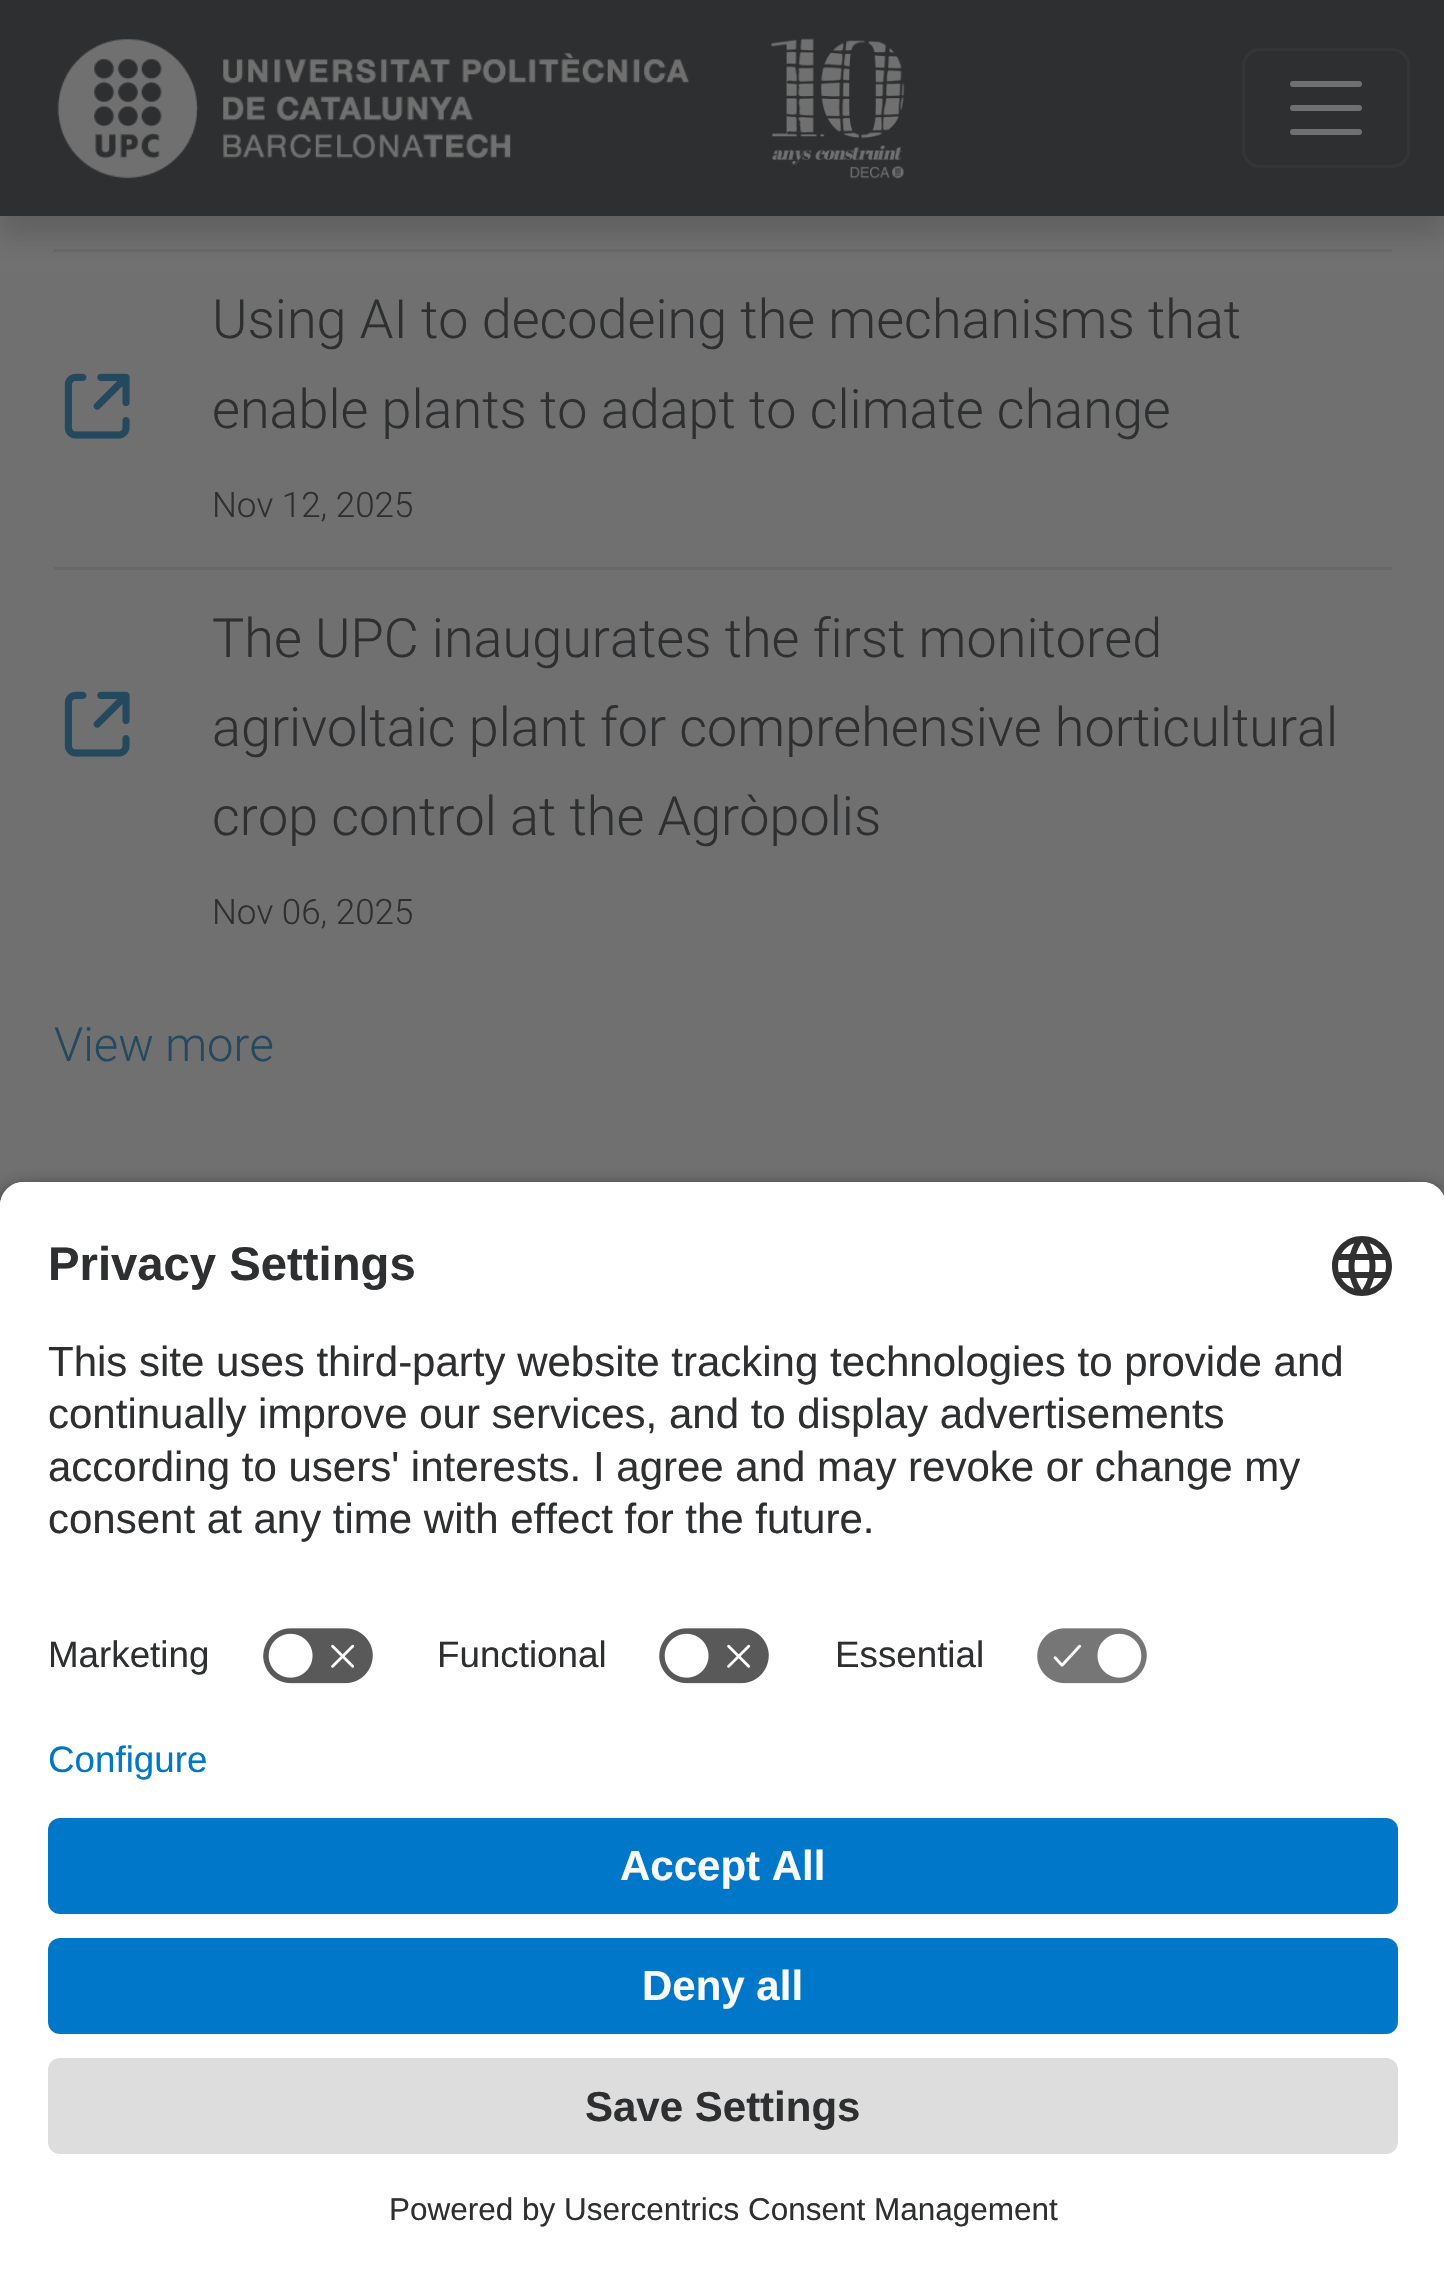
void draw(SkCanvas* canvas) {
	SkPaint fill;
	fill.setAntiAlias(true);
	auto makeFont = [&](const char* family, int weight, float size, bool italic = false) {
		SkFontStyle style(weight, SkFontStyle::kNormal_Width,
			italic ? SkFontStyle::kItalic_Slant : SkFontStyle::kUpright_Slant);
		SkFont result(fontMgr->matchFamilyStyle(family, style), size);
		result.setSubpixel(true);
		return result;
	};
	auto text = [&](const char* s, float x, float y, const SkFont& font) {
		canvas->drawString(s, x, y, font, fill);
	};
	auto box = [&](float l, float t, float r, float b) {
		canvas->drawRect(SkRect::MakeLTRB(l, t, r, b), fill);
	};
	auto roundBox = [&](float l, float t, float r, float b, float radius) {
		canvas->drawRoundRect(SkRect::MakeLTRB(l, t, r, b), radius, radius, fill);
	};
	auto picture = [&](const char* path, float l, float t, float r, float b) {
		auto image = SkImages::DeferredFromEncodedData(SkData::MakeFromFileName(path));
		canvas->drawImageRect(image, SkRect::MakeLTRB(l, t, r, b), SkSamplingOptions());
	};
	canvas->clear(0xFF707070);
	fill.setColor(0xFF666869);
	box(54, 249, 1392, 252);
	fill.setColor(0x33242424);
	fill.setMaskFilter(SkMaskFilter::MakeBlur(kNormal_SkBlurStyle, 12));
	canvas->drawRect(SkRect::MakeLTRB(0, 21, 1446, 237), fill);
	fill.setMaskFilter(nullptr);
	fill.setColor(0xFF2E2F30);
	box(0, 0, 1444, 216);
	picture("image0.png", 57, 39, 690, 179);
	picture("image1.png", 770, 38, 905, 179);
	fill.setStyle(SkPaint::kStroke_Style);
	fill.setStrokeWidth(3);
	fill.setColor(0xFF343536);
	canvas->drawRoundRect(SkRect::MakeLTRB(1243.5f, 49.5f, 1408.5f, 166.5f), 16.5f, 16.5f, fill);
	fill.setStrokeWidth(6);
	fill.setStrokeCap(SkPaint::kRound_Cap);
	fill.setColor(0xFF707070);
	canvas->drawPath(SkPathBuilder().moveTo(1293, 84).lineTo(1359, 84).moveTo(1293, 108).lineTo(1359, 108).moveTo(1293, 132).lineTo(1359, 132).detach(), fill);
	fill.setStyle(SkPaint::kFill_Style);
	fill.setColor(0xFF666869);
	box(54, 567, 1392, 570);
	picture("image2.png", 64, 373, 130, 439);
	picture("image2.png", 64, 691, 130, 757);
	fill.setColor(0xCC000000);
	fill.setMaskFilter(SkMaskFilter::MakeBlur(kNormal_SkBlurStyle, 10.5f));
	canvas->drawRoundRect(SkRect::MakeLTRB(0, 1191, 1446, 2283), 24, 24, fill);
	fill.setMaskFilter(nullptr);
	fill.setColor(0xFFFFFFFF);
	canvas->drawPath(SkPathBuilder().moveTo(24, 1182).lineTo(1422, 1182).cubicTo(1435.5f, 1182, 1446, 1192.5f, 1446, 1206).lineTo(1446, 1740).lineTo(0, 1740).lineTo(0, 1206).cubicTo(0, 1192.5f, 10.5f, 1182, 24, 1182).close().detach(), fill);
	canvas->drawPath(SkPathBuilder().moveTo(24, 1182).lineTo(1422, 1182).cubicTo(1435.5f, 1182, 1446, 1192.5f, 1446, 1206).lineTo(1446, 1608).lineTo(0, 1608).lineTo(0, 1206).cubicTo(0, 1192.5f, 10.5f, 1182, 24, 1182).close().detach(), fill);
	picture("image3.png", 1332, 1236, 1392, 1296);
	picture("image4.png", 263, 1628, 373, 1684);
	picture("image4.png", 659, 1628, 769, 1684);
	picture("image5.png", 1037, 1628, 1147, 1684);
	box(0, 1740, 1444, 2272);
	fill.setColor(0xFF0077C8);
	roundBox(48, 1818, 1398, 1914, 12);
	roundBox(48, 1938, 1398, 2034, 12);
	fill.setColor(0xFFDDDDDD);
	roundBox(48, 2058, 1398, 2154, 12);
	auto font1 = makeFont("Roboto", 300, 54);
	fill.setColor(0xFF2E2F30);
	text("Using AI to decodeing the mechanisms that", 212, 338, font1);
	text("enable plants to adapt to climate change", 212, 428, font1);
	auto font2 = makeFont("Roboto", 300, 35);
	text("Nov 12, 2025", 212, 517, font2);
	text("The UPC inaugurates the first monitored", 212, 657, font1);
	text("agrivoltaic plant for comprehensive horticultural", 212, 746, font1);
	text("crop control at the Agròpolis", 212, 835, font1);
	text("Nov 06, 2025", 212, 924, font2);
	auto font3 = makeFont("Roboto", 300, 47.25f);
	fill.setColor(0xFF24495E);
	text("View more", 54, 1061, font3);
	auto font4 = makeFont("Liberation Sans", 700, 47.25f);
	fill.setColor(0xFF2E2F30);
	text("Privacy Settings", 48, 1280, font4);
	auto font5 = makeFont("Liberation Sans", 400, 42);
	text("This site uses third-party website tracking technologies to provide and", 48, 1376, font5);
	text("continually improve our services, and to display advertisements", 48, 1428, font5);
	text("according to users' interests. I agree and may revoke or change my", 48, 1481, font5);
	text("consent at any time with effect for the future.", 48, 1533, font5);
	auto font6 = makeFont("Liberation Sans", 400, 36.75f);
	text("Marketing", 48, 1667, font6);
	text("Functional", 437, 1667, font6);
	text("Essential", 835, 1667, font6);
	fill.setColor(0xFF0077C8);
	text("Configure", 48, 1772, font6);
	auto font7 = makeFont("Liberation Sans", 700, 42);
	fill.setColor(0xFFFAFAFA);
	text("Accept All", 620, 1880, font7);
	text("Deny all", 642, 2000, font7);
	fill.setColor(0xFF2E2F30);
	text("Save Settings", 585, 2121, font7);
	auto font8 = makeFont("Liberation Sans", 400, 31.5f);
	text("Powered by Usercentrics Consent Management", 389, 2220, font8);
}
